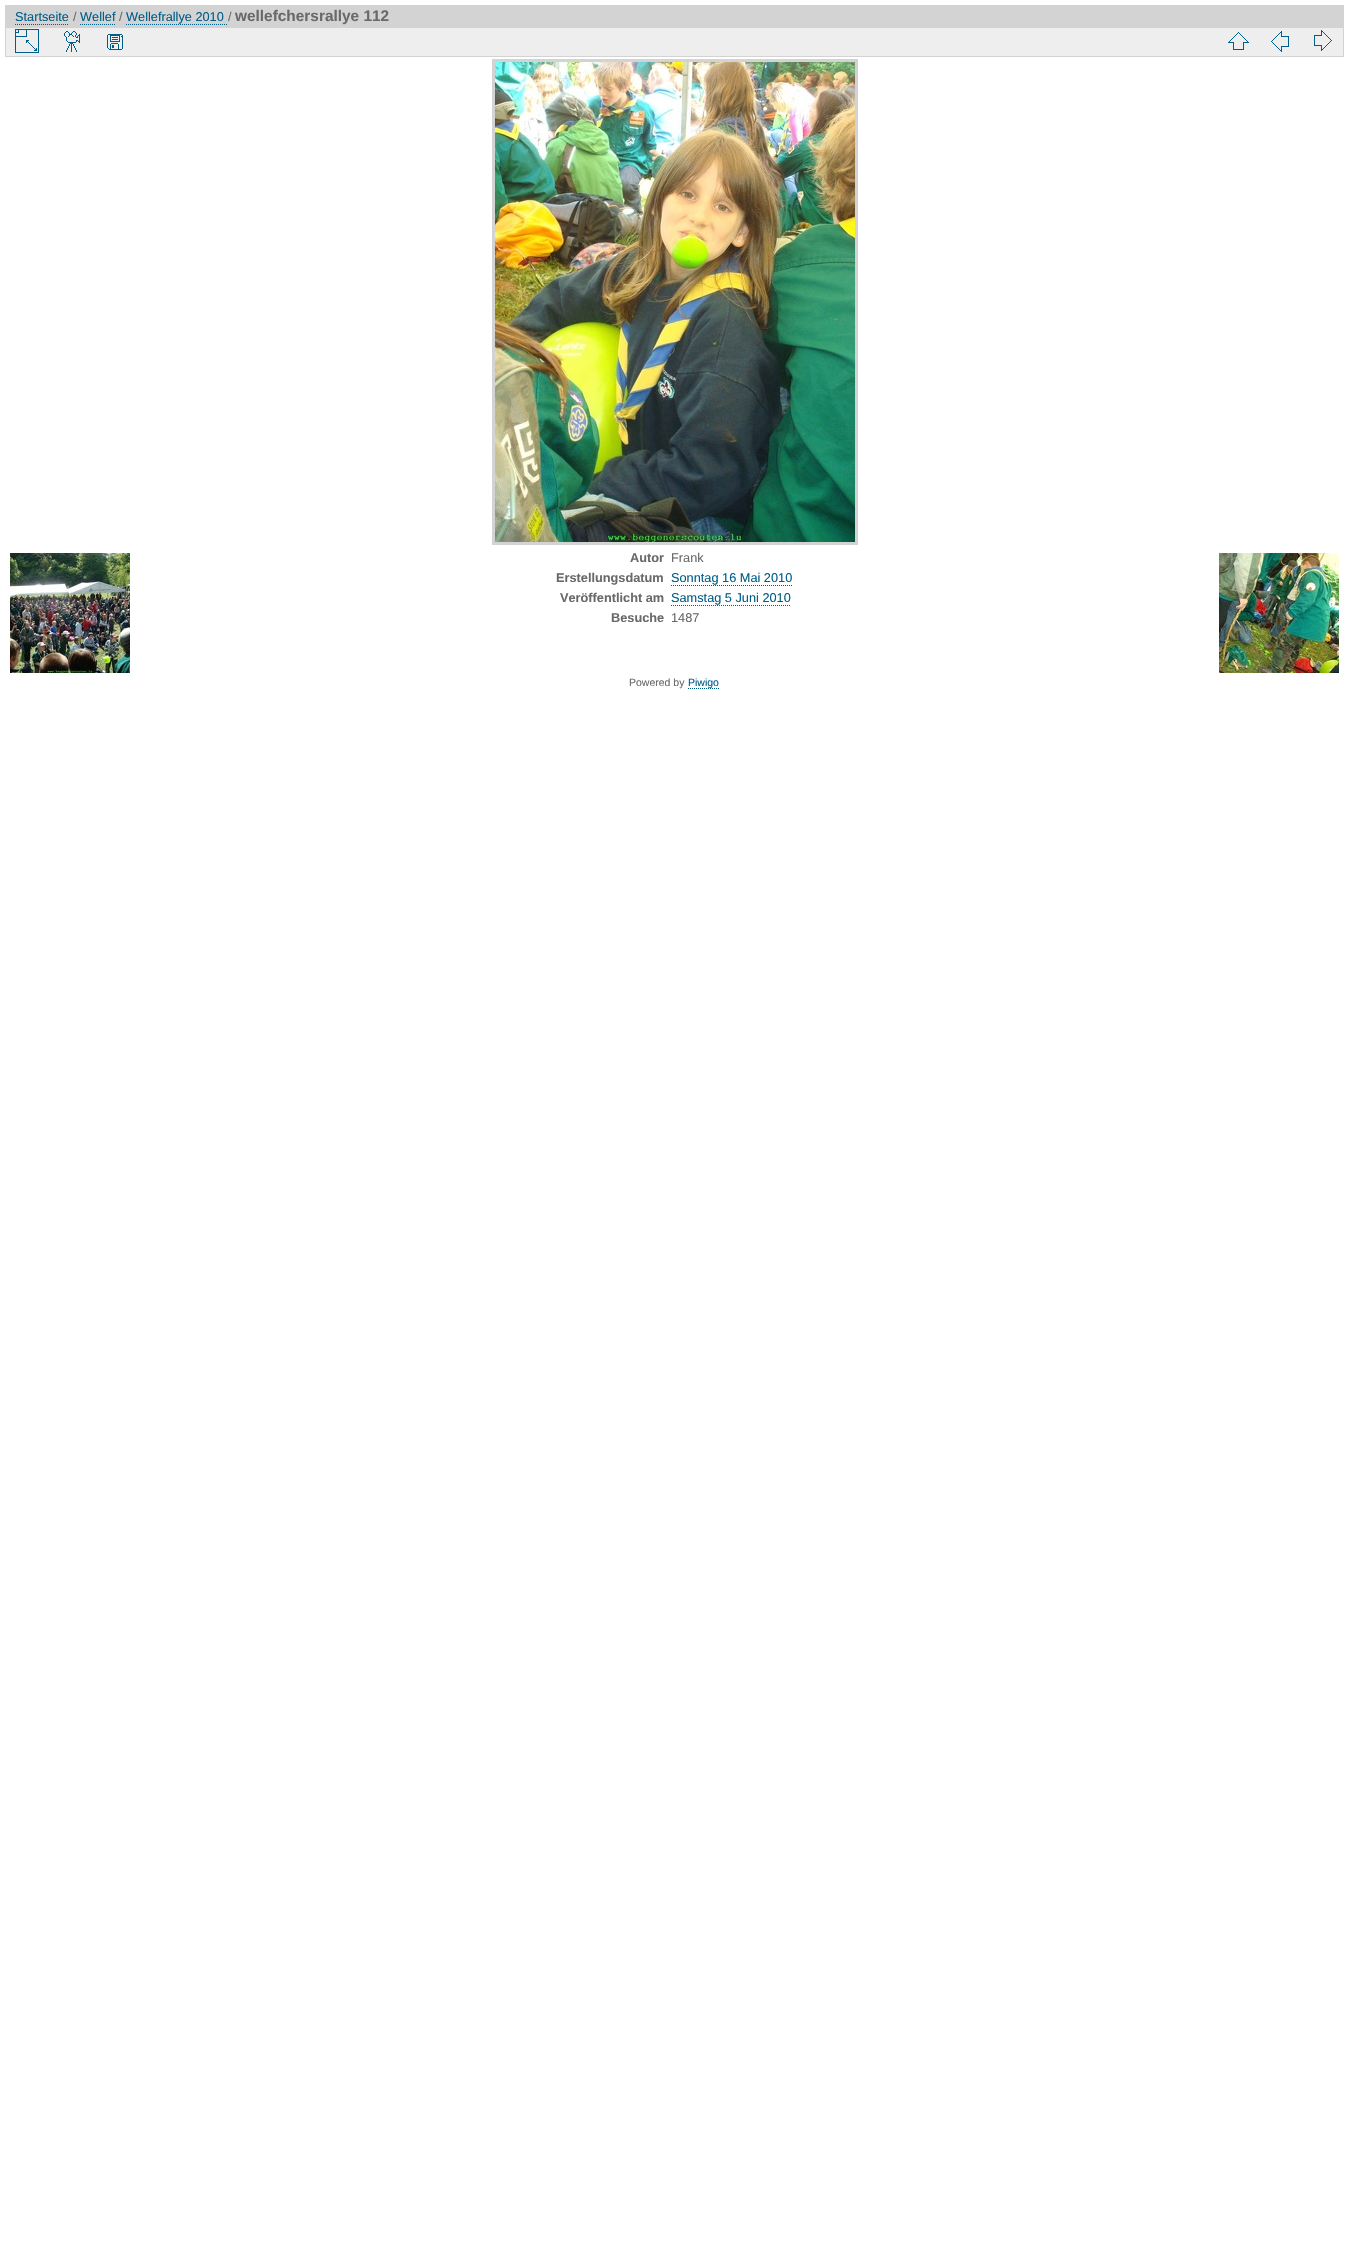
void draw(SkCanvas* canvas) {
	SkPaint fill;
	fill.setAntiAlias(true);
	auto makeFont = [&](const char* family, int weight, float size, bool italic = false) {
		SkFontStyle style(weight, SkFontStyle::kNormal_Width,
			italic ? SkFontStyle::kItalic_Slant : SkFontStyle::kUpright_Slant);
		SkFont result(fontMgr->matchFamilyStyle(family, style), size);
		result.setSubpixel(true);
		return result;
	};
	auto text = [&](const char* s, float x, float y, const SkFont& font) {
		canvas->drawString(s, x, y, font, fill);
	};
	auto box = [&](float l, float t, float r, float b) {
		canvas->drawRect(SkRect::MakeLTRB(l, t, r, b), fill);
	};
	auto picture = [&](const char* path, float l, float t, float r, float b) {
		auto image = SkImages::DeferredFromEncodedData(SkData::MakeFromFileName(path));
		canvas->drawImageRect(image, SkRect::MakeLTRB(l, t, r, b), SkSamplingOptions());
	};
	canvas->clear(0xFFFFFFFF);
	fill.setColor(0xFFD3D3D3);
	box(5, 5, 1344, 27);
	fill.setStyle(SkPaint::kStroke_Style);
	fill.setStrokeWidth(1);
	fill.setColor(0xFF005E89);
	fill.setPathEffect(SkDashPathEffect::Make({{1, 1}}, 0));
	canvas->drawPath(SkPathBuilder().moveTo(15, 24.5f).lineTo(69, 24.5f).detach(), fill);
	fill.setPathEffect(nullptr);
	fill.setPathEffect(SkDashPathEffect::Make({{1, 1}}, 0));
	canvas->drawPath(SkPathBuilder().moveTo(80, 24.5f).lineTo(115, 24.5f).detach(), fill);
	fill.setPathEffect(nullptr);
	fill.setPathEffect(SkDashPathEffect::Make({{1, 1}}, 0));
	canvas->drawPath(SkPathBuilder().moveTo(126, 24.5f).lineTo(228, 24.5f).detach(), fill);
	fill.setPathEffect(nullptr);
	fill.setStyle(SkPaint::kFill_Style);
	fill.setColor(0xFFEEEEEE);
	canvas->drawRect(SkRect::MakeLTRB(5.5f, 27.5f, 1343.5f, 56.5f), fill);
	fill.setStyle(SkPaint::kStroke_Style);
	fill.setColor(0xFFD3D3D3);
	canvas->drawRect(SkRect::MakeLTRB(5.5f, 27.5f, 1343.5f, 56.5f), fill);
	picture("image0.png", 15, 29, 39, 53);
	picture("image1.png", 64, 31, 80, 52);
	picture("image2.png", 107, 34, 123, 50);
	picture("image3.png", 1228, 32, 1249, 50);
	picture("image4.png", 1271, 31, 1289, 52);
	picture("image5.png", 1314, 30, 1332, 51);
	fill.setStrokeWidth(3);
	canvas->drawRect(SkRect::MakeLTRB(493.5f, 60.5f, 856.5f, 543.5f), fill);
	picture("image6.png", 495, 62, 855, 542);
	fill.setStrokeWidth(1);
	fill.setColor(0xFF005E89);
	fill.setPathEffect(SkDashPathEffect::Make({{1, 1}}, 0));
	canvas->drawPath(SkPathBuilder().moveTo(671, 585.5f).lineTo(793, 585.5f).detach(), fill);
	fill.setPathEffect(nullptr);
	fill.setPathEffect(SkDashPathEffect::Make({{1, 1}}, 0));
	canvas->drawPath(SkPathBuilder().moveTo(671, 605.5f).lineTo(791, 605.5f).detach(), fill);
	fill.setPathEffect(nullptr);
	picture("image7.png", 10, 553, 130, 673);
	picture("image8.png", 1219, 553, 1339, 673);
	fill.setPathEffect(SkDashPathEffect::Make({{1, 1}}, 0));
	canvas->drawPath(SkPathBuilder().moveTo(688, 688.5f).lineTo(720, 688.5f).detach(), fill);
	fill.setPathEffect(nullptr);
	auto font1 = makeFont("Liberation Sans", 400, 12.75f);
	fill.setStyle(SkPaint::kFill_Style);
	text("Startseite", 15, 21, font1);
	fill.setColor(0xFF696969);
	text("/", 73, 21, font1);
	fill.setColor(0xFF005E89);
	text("Wellef", 80, 21, font1);
	fill.setColor(0xFF696969);
	text("/", 119, 21, font1);
	fill.setColor(0xFF005E89);
	text("Wellefrallye 2010", 126, 21, font1);
	fill.setColor(0xFF696969);
	text("/", 228, 21, font1);
	auto font2 = makeFont("Liberation Sans", 700, 15.4f);
	text("wellefchersrallye 112", 235, 21, font2);
	auto font3 = makeFont("Liberation Sans", 700, 12.75f);
	text("Autor", 630, 562, font3);
	text("Frank", 671, 562, font1);
	text("Erstellungsdatum", 556, 582, font3);
	fill.setColor(0xFF005E89);
	text("Sonntag 16 Mai 2010", 671, 582, font1);
	fill.setColor(0xFF696969);
	text("Veröffentlicht am", 560, 602, font3);
	fill.setColor(0xFF005E89);
	text("Samstag 5 Juni 2010", 671, 602, font1);
	fill.setColor(0xFF696969);
	text("Besuche", 611, 622, font3);
	text("1487", 671, 622, font1);
	auto font4 = makeFont("Liberation Sans", 400, 10.5f);
	text("Powered by", 629, 686, font4);
	fill.setColor(0xFF005E89);
	text("Piwigo", 688, 686, font4);
}
